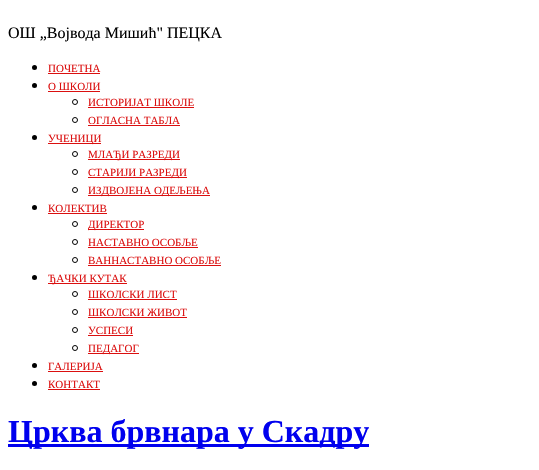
void draw(SkCanvas* canvas) {
	SkPaint fill;
	fill.setAntiAlias(true);
	auto makeFont = [&](const char* family, int weight, float size, bool italic = false) {
		SkFontStyle style(weight, SkFontStyle::kNormal_Width,
			italic ? SkFontStyle::kItalic_Slant : SkFontStyle::kUpright_Slant);
		SkFont result(fontMgr->matchFamilyStyle(family, style), size);
		result.setSubpixel(true);
		return result;
	};
	auto text = [&](const char* s, float x, float y, const SkFont& font) {
		canvas->drawString(s, x, y, font, fill);
	};
	auto box = [&](float l, float t, float r, float b) {
		canvas->drawRect(SkRect::MakeLTRB(l, t, r, b), fill);
	};
	canvas->clear(0xFFFFFFFF);
	fill.setColor(0xFF000000);
	canvas->drawCircle(34.5f, 67.5f, 2.5f, fill);
	fill.setColor(0xFFDB0F0F);
	box(48, 73, 100, 74);
	fill.setColor(0xFF000000);
	canvas->drawCircle(34.5f, 85.5f, 2.5f, fill);
	fill.setColor(0xFFDB0F0F);
	box(48, 91, 100, 92);
	fill.setStyle(SkPaint::kStroke_Style);
	fill.setStrokeWidth(1);
	fill.setColor(0xFF000000);
	canvas->drawCircle(75, 102, 2.5f, fill);
	fill.setStyle(SkPaint::kFill_Style);
	fill.setColor(0xFFDB0F0F);
	box(88, 107, 194, 108);
	fill.setStyle(SkPaint::kStroke_Style);
	fill.setColor(0xFF000000);
	canvas->drawCircle(75, 120, 2.5f, fill);
	fill.setStyle(SkPaint::kFill_Style);
	fill.setColor(0xFFDB0F0F);
	box(88, 125, 180, 126);
	fill.setColor(0xFF000000);
	canvas->drawCircle(34.5f, 137.5f, 2.5f, fill);
	fill.setColor(0xFFDB0F0F);
	box(48, 143, 101, 144);
	fill.setStyle(SkPaint::kStroke_Style);
	fill.setColor(0xFF000000);
	canvas->drawCircle(75, 154, 2.5f, fill);
	fill.setStyle(SkPaint::kFill_Style);
	fill.setColor(0xFFDB0F0F);
	box(88, 159, 180, 160);
	fill.setStyle(SkPaint::kStroke_Style);
	fill.setColor(0xFF000000);
	canvas->drawCircle(75, 172, 2.5f, fill);
	fill.setStyle(SkPaint::kFill_Style);
	fill.setColor(0xFFDB0F0F);
	box(88, 177, 187, 178);
	fill.setStyle(SkPaint::kStroke_Style);
	fill.setColor(0xFF000000);
	canvas->drawCircle(75, 190, 2.5f, fill);
	fill.setStyle(SkPaint::kFill_Style);
	fill.setColor(0xFFDB0F0F);
	box(88, 195, 210, 196);
	fill.setColor(0xFF000000);
	canvas->drawCircle(34.5f, 207.5f, 2.5f, fill);
	fill.setColor(0xFFDB0F0F);
	box(48, 213, 107, 214);
	fill.setStyle(SkPaint::kStroke_Style);
	fill.setColor(0xFF000000);
	canvas->drawCircle(75, 224, 2.5f, fill);
	fill.setStyle(SkPaint::kFill_Style);
	fill.setColor(0xFFDB0F0F);
	box(88, 229, 144, 230);
	fill.setStyle(SkPaint::kStroke_Style);
	fill.setColor(0xFF000000);
	canvas->drawCircle(75, 242, 2.5f, fill);
	fill.setStyle(SkPaint::kFill_Style);
	fill.setColor(0xFFDB0F0F);
	box(88, 247, 198, 248);
	fill.setStyle(SkPaint::kStroke_Style);
	fill.setColor(0xFF000000);
	canvas->drawCircle(75, 260, 2.5f, fill);
	fill.setStyle(SkPaint::kFill_Style);
	fill.setColor(0xFFDB0F0F);
	box(88, 265, 221, 266);
	fill.setColor(0xFF000000);
	canvas->drawCircle(34.5f, 277.5f, 2.5f, fill);
	fill.setColor(0xFFDB0F0F);
	box(48, 283, 127, 284);
	fill.setStyle(SkPaint::kStroke_Style);
	fill.setColor(0xFF000000);
	canvas->drawCircle(75, 294, 2.5f, fill);
	fill.setStyle(SkPaint::kFill_Style);
	fill.setColor(0xFFDB0F0F);
	box(88, 299, 177, 300);
	fill.setStyle(SkPaint::kStroke_Style);
	fill.setColor(0xFF000000);
	canvas->drawCircle(75, 312, 2.5f, fill);
	fill.setStyle(SkPaint::kFill_Style);
	fill.setColor(0xFFDB0F0F);
	box(88, 317, 187, 318);
	fill.setStyle(SkPaint::kStroke_Style);
	fill.setColor(0xFF000000);
	canvas->drawCircle(75, 330, 2.5f, fill);
	fill.setStyle(SkPaint::kFill_Style);
	fill.setColor(0xFFDB0F0F);
	box(88, 335, 133, 336);
	fill.setStyle(SkPaint::kStroke_Style);
	fill.setColor(0xFF000000);
	canvas->drawCircle(75, 348, 2.5f, fill);
	fill.setStyle(SkPaint::kFill_Style);
	fill.setColor(0xFFDB0F0F);
	box(88, 353, 139, 354);
	fill.setColor(0xFF000000);
	canvas->drawCircle(34.5f, 365.5f, 2.5f, fill);
	fill.setColor(0xFFDB0F0F);
	box(48, 371, 103, 372);
	fill.setColor(0xFF000000);
	canvas->drawCircle(34.5f, 383.5f, 2.5f, fill);
	fill.setColor(0xFFDB0F0F);
	box(48, 389, 100, 390);
	fill.setColor(0xFF0000EE);
	box(8, 444, 369, 447);
	auto font1 = makeFont("Liberation Serif", 400, 16);
	fill.setColor(0xFF000000);
	text("ОШ „Војвода Мишић\" ПЕЦКА", 8, 38, font1);
	auto font2 = makeFont("Liberation Serif", 400, 11);
	fill.setColor(0xFFDB0F0F);
	text("ПОЧЕТНА", 48, 72, font2);
	text("О ШКОЛИ", 48, 90, font2);
	text("ИСТОРИЈАТ ШКОЛЕ", 88, 106, font2);
	text("ОГЛАСНА ТАБЛА", 88, 124, font2);
	text("УЧЕНИЦИ", 48, 142, font2);
	text("МЛАЂИ РАЗРЕДИ", 88, 158, font2);
	text("СТАРИЈИ РАЗРЕДИ", 88, 176, font2);
	text("ИЗДВОЈЕНА ОДЕЉЕЊА", 88, 194, font2);
	text("КОЛЕКТИВ", 48, 212, font2);
	text("ДИРЕКТОР", 88, 228, font2);
	text("НАСТАВНО ОСОБЉЕ", 88, 246, font2);
	text("ВАННАСТАВНО ОСОБЉЕ", 88, 264, font2);
	text("ЂАЧКИ КУТАК", 48, 282, font2);
	text("ШКОЛСКИ ЛИСТ", 88, 298, font2);
	text("ШКОЛСКИ ЖИВОТ", 88, 316, font2);
	text("УСПЕСИ", 88, 334, font2);
	text("ПЕДАГОГ", 88, 352, font2);
	text("ГАЛЕРИЈА", 48, 370, font2);
	text("КОНТАКТ", 48, 388, font2);
	auto font3 = makeFont("Liberation Serif", 700, 32);
	fill.setColor(0xFF0000EE);
	text("Црква брвнара у Скадру", 8, 442, font3);
}
